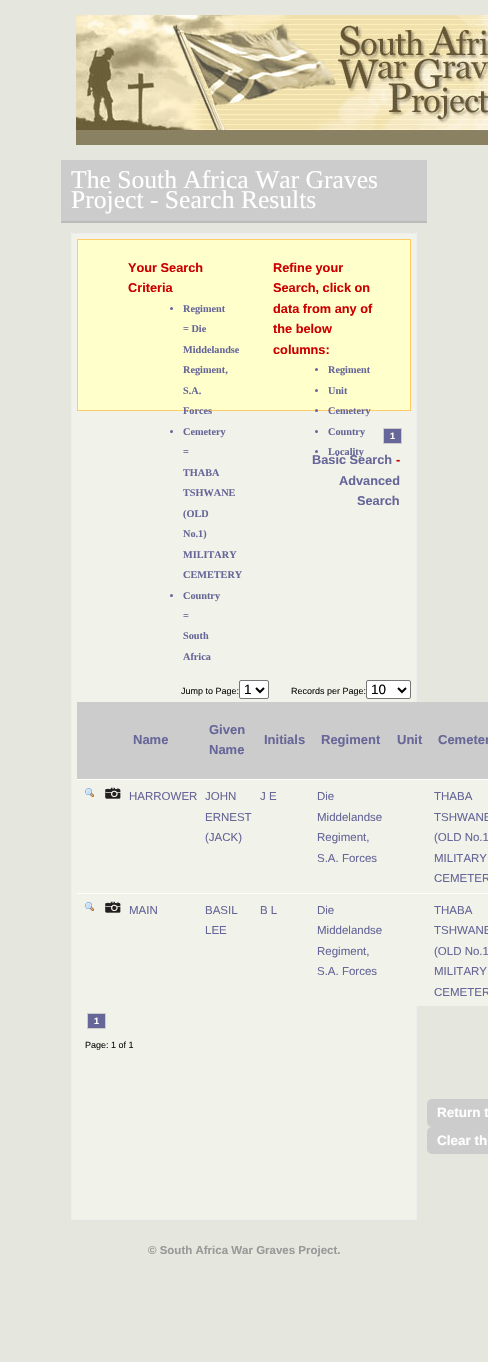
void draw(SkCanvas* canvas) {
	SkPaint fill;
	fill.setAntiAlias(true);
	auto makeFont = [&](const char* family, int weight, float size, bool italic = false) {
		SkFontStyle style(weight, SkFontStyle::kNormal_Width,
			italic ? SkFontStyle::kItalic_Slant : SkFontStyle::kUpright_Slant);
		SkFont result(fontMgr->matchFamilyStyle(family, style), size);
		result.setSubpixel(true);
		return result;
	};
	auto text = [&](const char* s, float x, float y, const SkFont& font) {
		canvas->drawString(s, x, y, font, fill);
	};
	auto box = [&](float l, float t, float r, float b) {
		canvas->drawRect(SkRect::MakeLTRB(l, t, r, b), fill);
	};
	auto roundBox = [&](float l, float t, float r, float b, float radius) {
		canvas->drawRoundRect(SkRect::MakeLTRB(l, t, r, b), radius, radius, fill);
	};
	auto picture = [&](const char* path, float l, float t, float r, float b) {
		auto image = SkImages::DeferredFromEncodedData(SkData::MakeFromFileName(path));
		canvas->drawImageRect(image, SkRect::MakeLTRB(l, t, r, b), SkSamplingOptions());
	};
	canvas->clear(0xFFE5E6DD);
	picture("image0.png", 76, 15, 488, 145);
	fill.setColor(0xFFCCCCCC);
	box(61, 160, 427, 221);
	fill.setColor(0xFFBBBBBB);
	box(61, 221, 427, 223);
	fill.setColor(0xFFF1F2E9);
	canvas->drawRect(SkRect::MakeLTRB(71.5f, 233.5f, 416.5f, 1219.5f), fill);
	fill.setStyle(SkPaint::kStroke_Style);
	fill.setStrokeWidth(1);
	fill.setColor(0xFFEEEEEE);
	canvas->drawRect(SkRect::MakeLTRB(71.5f, 233.5f, 416.5f, 1219.5f), fill);
	fill.setStyle(SkPaint::kFill_Style);
	fill.setColor(0xFFFFFFCC);
	canvas->drawRect(SkRect::MakeLTRB(77.5f, 239.5f, 410.5f, 410.5f), fill);
	fill.setStyle(SkPaint::kStroke_Style);
	fill.setColor(0xFFFFCC66);
	canvas->drawRect(SkRect::MakeLTRB(77.5f, 239.5f, 410.5f, 410.5f), fill);
	fill.setStyle(SkPaint::kFill_Style);
	fill.setColor(0xFF666699);
	canvas->drawCircle(171.5f, 308.5f, 1.5f, fill);
	canvas->drawCircle(171.5f, 431.5f, 1.5f, fill);
	canvas->drawCircle(171.5f, 595.5f, 1.5f, fill);
	canvas->drawCircle(316.5f, 369.5f, 1.5f, fill);
	canvas->drawCircle(316.5f, 390.5f, 1.5f, fill);
	canvas->drawCircle(316.5f, 410.5f, 1.5f, fill);
	canvas->drawCircle(316.5f, 431.5f, 1.5f, fill);
	canvas->drawCircle(316.5f, 451.5f, 1.5f, fill);
	canvas->drawRect(SkRect::MakeLTRB(383.5f, 428.5f, 401.5f, 443.5f), fill);
	fill.setStyle(SkPaint::kStroke_Style);
	fill.setColor(0xFFCCCCCC);
	canvas->drawRect(SkRect::MakeLTRB(383.5f, 428.5f, 401.5f, 443.5f), fill);
	fill.setStyle(SkPaint::kFill_Style);
	fill.setColor(0xFFFFFFFF);
	canvas->drawRoundRect(SkRect::MakeLTRB(239.5f, 680.5f, 268.5f, 698.5f), 1.5f, 1.5f, fill);
	fill.setStyle(SkPaint::kStroke_Style);
	fill.setColor(0xFF767676);
	canvas->drawRoundRect(SkRect::MakeLTRB(239.5f, 680.5f, 268.5f, 698.5f), 1.5f, 1.5f, fill);
	fill.setStrokeWidth(2);
	fill.setColor(0xFF000000);
	canvas->drawPath(SkPathBuilder().moveTo(256, 688).lineTo(260, 692).lineTo(264, 688).detach(), fill);
	fill.setStyle(SkPaint::kFill_Style);
	fill.setColor(0xFFFFFFFF);
	canvas->drawRoundRect(SkRect::MakeLTRB(366.5f, 680.5f, 410.5f, 698.5f), 1.5f, 1.5f, fill);
	fill.setStyle(SkPaint::kStroke_Style);
	fill.setStrokeWidth(1);
	fill.setColor(0xFF767676);
	canvas->drawRoundRect(SkRect::MakeLTRB(366.5f, 680.5f, 410.5f, 698.5f), 1.5f, 1.5f, fill);
	fill.setStrokeWidth(2);
	fill.setColor(0xFF000000);
	canvas->drawPath(SkPathBuilder().moveTo(398, 688).lineTo(402, 692).lineTo(406, 688).detach(), fill);
	fill.setStyle(SkPaint::kFill_Style);
	fill.setColor(0xFFCCCCCC);
	box(77, 702, 488, 779);
	picture("image1.png", 85, 788, 94, 797);
	picture("image2.png", 105, 787, 121, 799);
	fill.setColor(0xFFF1F2E9);
	box(416, 780, 488, 893);
	fill.setColor(0xFFFFFFFF);
	box(77, 779, 488, 780);
	picture("image1.png", 85, 902, 94, 911);
	picture("image2.png", 105, 901, 121, 913);
	fill.setColor(0xFFF1F2E9);
	box(416, 894, 488, 1006);
	fill.setColor(0xFFFFFFFF);
	box(77, 893, 488, 894);
	fill.setColor(0xFF666699);
	canvas->drawRect(SkRect::MakeLTRB(87.5f, 1013.5f, 105.5f, 1028.5f), fill);
	fill.setStyle(SkPaint::kStroke_Style);
	fill.setStrokeWidth(1);
	fill.setColor(0xFFCCCCCC);
	canvas->drawRect(SkRect::MakeLTRB(87.5f, 1013.5f, 105.5f, 1028.5f), fill);
	fill.setStyle(SkPaint::kFill_Style);
	roundBox(427, 1099, 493, 1127, 5);
	roundBox(427, 1127, 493, 1154, 5);
	auto font1 = makeFont("Liberation Serif", 400, 25.6f);
	fill.setColor(0xFFFFFFFF);
	text("The South Africa War Graves", 71, 188, font1);
	text("Project - Search Results", 71, 208, font1);
	auto font2 = makeFont("Liberation Sans", 700, 12.75f);
	fill.setColor(0xFFCC0000);
	text("Your Search", 128, 272, font2);
	text("Criteria", 128, 292, font2);
	auto font3 = makeFont("Liberation Serif", 700, 10.25f);
	fill.setColor(0xFF666699);
	text("Regiment", 183, 312, font3);
	text("= Die", 183, 332, font3);
	text("Middelandse", 183, 353, font3);
	text("Regiment,", 183, 373, font3);
	text("S.A.", 183, 394, font3);
	text("Forces", 183, 414, font3);
	text("Cemetery", 183, 435, font3);
	text("=", 183, 455, font3);
	text("THABA", 183, 476, font3);
	text("TSHWANE", 183, 496, font3);
	text("(OLD", 183, 517, font3);
	text("No.1)", 183, 537, font3);
	text("MILITARY", 183, 558, font3);
	text("CEMETERY", 183, 578, font3);
	text("Country", 183, 599, font3);
	text("=", 183, 619, font3);
	text("South", 183, 639, font3);
	text("Africa", 183, 660, font3);
	fill.setColor(0xFFCC0000);
	text("Refine your", 273, 272, font2);
	text("Search, click on", 273, 292, font2);
	text("data from any of", 273, 313, font2);
	text("the below", 273, 333, font2);
	text("columns:", 273, 354, font2);
	fill.setColor(0xFF666699);
	text("Regiment", 328, 373, font3);
	text("Unit", 328, 394, font3);
	text("Cemetery", 328, 414, font3);
	text("Country", 328, 435, font3);
	text("Locality", 328, 455, font3);
	text("Basic Search", 312, 464, font2);
	fill.setColor(0xFFCC0000);
	text("-", 396, 464, font2);
	fill.setColor(0xFF666699);
	text("Advanced", 339, 485, font2);
	text("Search", 357, 505, font2);
	auto font4 = makeFont("Liberation Sans", 700, 9);
	fill.setColor(0xFFFFFFFF);
	text("1", 390, 439, font4);
	auto font5 = makeFont("Liberation Sans", 400, 9);
	fill.setColor(0xFF111111);
	text("Jump to Page:", 181, 694, font5);
	auto font6 = makeFont("Liberation Sans", 400, 13.5f);
	fill.setColor(0xFF000000);
	text("1", 244, 694, font6);
	fill.setColor(0xFF111111);
	text("Records per Page:", 291, 694, font5);
	fill.setColor(0xFF000000);
	text("10", 371, 694, font6);
	auto font7 = makeFont("Liberation Sans", 700, 13);
	fill.setColor(0xFF666699);
	text("Name", 133, 744, font7);
	text("Given", 209, 734, font7);
	text("Name", 209, 754, font7);
	text("Initials", 264, 744, font7);
	text("Regiment", 321, 744, font7);
	text("Unit", 397, 744, font7);
	text("Cemeter", 438, 744, font7);
	auto font8 = makeFont("Liberation Sans", 400, 11.5f);
	text("HARROWER", 129, 800, font8);
	text("JOHN", 205, 800, font8);
	text("ERNEST", 205, 821, font8);
	text("(JACK)", 205, 841, font8);
	text("J E", 260, 800, font8);
	text("Die", 317, 800, font8);
	text("Middelandse", 317, 821, font8);
	text("Regiment,", 317, 841, font8);
	text("S.A. Forces", 317, 862, font8);
	text("THABA", 434, 800, font8);
	text("TSHWANE", 434, 821, font8);
	text("(OLD No.1", 434, 841, font8);
	text("MILITARY", 434, 862, font8);
	text("CEMETER", 434, 882, font8);
	text("MAIN", 129, 914, font8);
	text("BASIL", 205, 914, font8);
	text("LEE", 205, 934, font8);
	text("B L", 260, 914, font8);
	text("Die", 317, 914, font8);
	text("Middelandse", 317, 934, font8);
	text("Regiment,", 317, 955, font8);
	text("S.A. Forces", 317, 975, font8);
	text("THABA", 434, 914, font8);
	text("TSHWANE", 434, 934, font8);
	text("(OLD No.1", 434, 955, font8);
	text("MILITARY", 434, 975, font8);
	text("CEMETER", 434, 996, font8);
	fill.setColor(0xFFFFFFFF);
	text("1", 94, 1024, font4);
	fill.setColor(0xFF111111);
	text("Page: 1 of 1", 85, 1048, font5);
	auto font9 = makeFont("Liberation Sans", 700, 13.5f);
	fill.setColor(0xFFFFFFFF);
	text("Return t", 437, 1117, font9);
	text("Clear th", 437, 1145, font9);
	auto font10 = makeFont("Liberation Sans", 700, 11.5f);
	fill.setColor(0xFF999999);
	text("© South Africa War Graves Project.", 148, 1254, font10);
}
